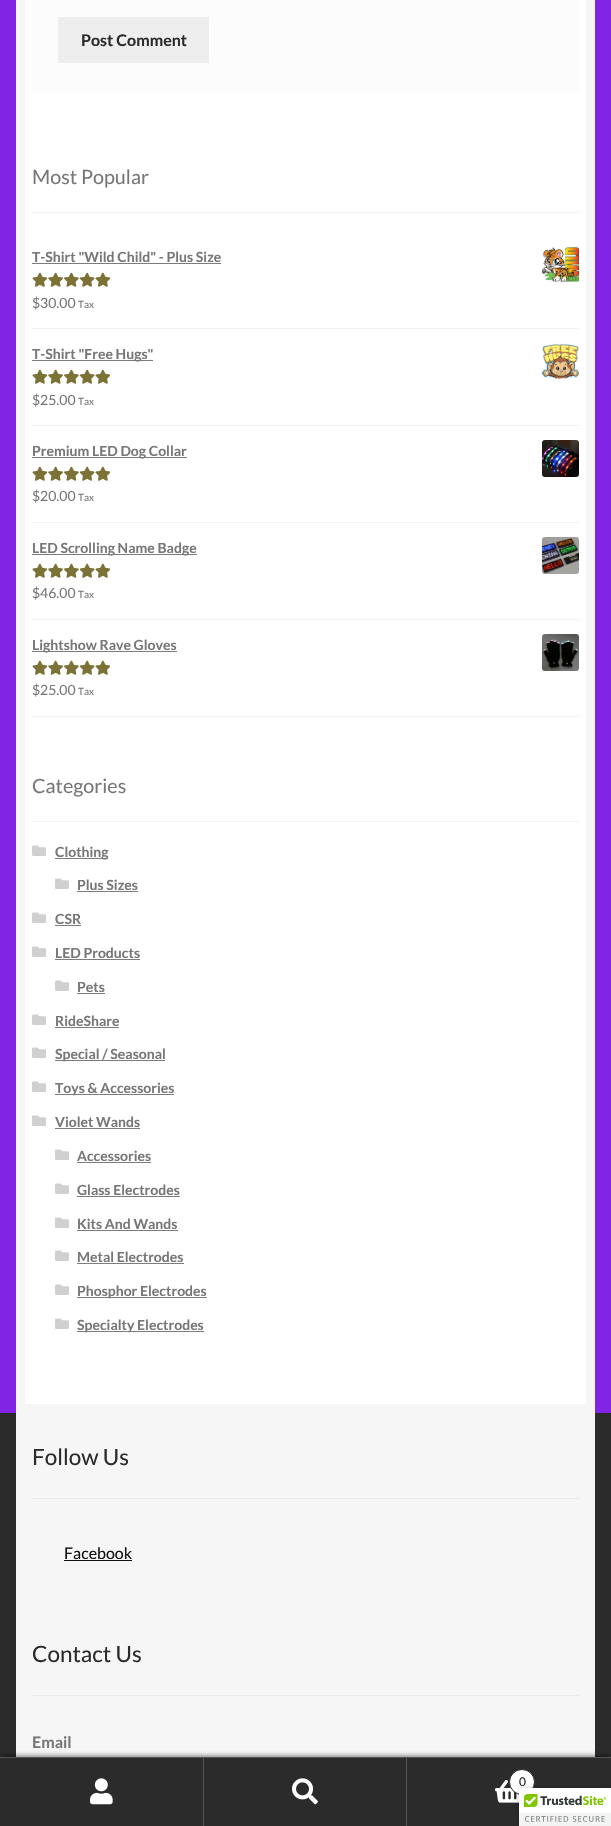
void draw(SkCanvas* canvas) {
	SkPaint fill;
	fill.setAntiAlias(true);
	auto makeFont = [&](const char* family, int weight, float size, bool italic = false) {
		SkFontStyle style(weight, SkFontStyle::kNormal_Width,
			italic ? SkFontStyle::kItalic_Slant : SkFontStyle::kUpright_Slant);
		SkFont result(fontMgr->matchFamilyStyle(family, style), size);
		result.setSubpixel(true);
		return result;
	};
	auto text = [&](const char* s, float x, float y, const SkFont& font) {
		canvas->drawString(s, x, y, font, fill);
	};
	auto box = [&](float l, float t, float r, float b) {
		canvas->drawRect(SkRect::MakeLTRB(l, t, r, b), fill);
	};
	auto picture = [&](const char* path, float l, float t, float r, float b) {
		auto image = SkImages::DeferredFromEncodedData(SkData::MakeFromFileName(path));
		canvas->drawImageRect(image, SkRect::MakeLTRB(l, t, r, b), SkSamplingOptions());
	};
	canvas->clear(0xFF8224E3);
	fill.setColor(0xFFFFFFFF);
	canvas->drawRect(SkRect::MakeLTRB(20.5f, -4.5f, 590.5f, 1408.5f), fill);
	fill.setStyle(SkPaint::kStroke_Style);
	fill.setStrokeWidth(9);
	fill.setColor(0xFFF6F6F6);
	canvas->drawRect(SkRect::MakeLTRB(20.5f, -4.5f, 590.5f, 1408.5f), fill);
	fill.setStyle(SkPaint::kFill_Style);
	fill.setColor(0xFFF9F9F9);
	box(32, 89, 579, 90);
	box(32, 91, 579, 92);
	fill.setColor(0xFFFCFCFC);
	box(32, 0, 579, 89);
	fill.setColor(0xFFEEEEEE);
	box(58, 17, 209, 63);
	fill.setColor(0xFFF2F2F2);
	box(32, 212, 579, 213);
	box(32, 328, 579, 329);
	fill.setColor(0xFF7C7C7C);
	box(32, 263, 221, 264);
	picture("image0.png", 542, 246, 579, 283);
	picture("image1.png", 32, 272, 110, 287);
	picture("image2.png", 32, 272, 110, 287);
	fill.setColor(0xFFF2F2F2);
	box(32, 425, 579, 426);
	fill.setColor(0xFF7C7C7C);
	box(32, 360, 153, 361);
	picture("image3.png", 542, 343, 579, 380);
	picture("image1.png", 32, 369, 110, 384);
	picture("image2.png", 32, 369, 110, 384);
	fill.setColor(0xFFF2F2F2);
	box(32, 522, 579, 523);
	fill.setColor(0xFF7C7C7C);
	box(32, 457, 187, 458);
	picture("image4.png", 542, 440, 579, 477);
	picture("image1.png", 32, 466, 110, 481);
	picture("image2.png", 32, 466, 110, 481);
	fill.setColor(0xFFF2F2F2);
	box(32, 619, 579, 620);
	fill.setColor(0xFF7C7C7C);
	box(32, 554, 197, 555);
	picture("image5.png", 542, 537, 579, 574);
	picture("image1.png", 32, 563, 110, 578);
	picture("image2.png", 32, 563, 110, 578);
	fill.setColor(0xFFF2F2F2);
	box(32, 716, 579, 717);
	fill.setColor(0xFF7C7C7C);
	box(32, 651, 177, 652);
	picture("image6.png", 542, 634, 579, 671);
	picture("image1.png", 32, 660, 110, 675);
	picture("image2.png", 32, 660, 110, 675);
	fill.setColor(0xFFF2F2F2);
	box(32, 821, 579, 822);
	picture("image7.png", 32, 845, 46, 856);
	fill.setColor(0xFF7C7C7C);
	box(55, 858, 108, 859);
	picture("image7.png", 55, 878, 69, 889);
	box(77, 891, 138, 892);
	picture("image7.png", 32, 912, 46, 923);
	box(55, 925, 81, 926);
	picture("image7.png", 32, 946, 46, 957);
	box(55, 959, 140, 960);
	picture("image7.png", 55, 980, 69, 991);
	box(77, 993, 105, 994);
	picture("image7.png", 32, 1014, 46, 1025);
	box(55, 1027, 119, 1028);
	picture("image7.png", 32, 1047, 46, 1058);
	box(55, 1060, 165, 1061);
	picture("image7.png", 32, 1081, 46, 1092);
	box(55, 1094, 174, 1095);
	picture("image7.png", 32, 1115, 46, 1126);
	box(55, 1128, 140, 1129);
	picture("image7.png", 55, 1149, 69, 1160);
	box(77, 1162, 151, 1163);
	picture("image7.png", 55, 1183, 69, 1194);
	box(77, 1196, 180, 1197);
	picture("image7.png", 55, 1217, 69, 1228);
	box(77, 1230, 178, 1231);
	picture("image7.png", 55, 1250, 69, 1261);
	box(77, 1263, 184, 1264);
	picture("image7.png", 55, 1284, 69, 1295);
	box(77, 1297, 207, 1298);
	picture("image7.png", 55, 1318, 69, 1329);
	box(77, 1331, 204, 1332);
	fill.setColor(0xFF2B2B2B);
	box(0, 1413, 611, 1757);
	fill.setColor(0xFFF6F6F6);
	box(16, 1413, 595, 1757);
	fill.setColor(0xFFEAEAEA);
	box(32, 1498, 579, 1499);
	fill.setColor(0xFF111111);
	box(64, 1560, 132, 1561);
	fill.setColor(0xFFEAEAEA);
	box(32, 1695, 579, 1696);
	fill.setColor(0xB3000000);
	fill.setMaskFilter(SkMaskFilter::MakeBlur(kNormal_SkBlurStyle, 3));
	canvas->drawRect(SkRect::MakeLTRB(0, 1757, 611, 1826), fill);
	fill.setMaskFilter(nullptr);
	fill.setColor(0xFF555555);
	box(0, 1757, 611, 1758);
	fill.setColor(0xFF2B2B2B);
	box(0, 1758, 203, 1826);
	fill.setColor(0xFF555555);
	box(203, 1758, 204, 1826);
	picture("image8.png", 90, 1778, 113, 1805);
	fill.setColor(0xFF2B2B2B);
	box(204, 1758, 406, 1826);
	fill.setColor(0xFF555555);
	box(406, 1758, 407, 1826);
	picture("image9.png", 292, 1778, 318, 1805);
	fill.setColor(0xFF2B2B2B);
	box(407, 1758, 611, 1826);
	picture("image10.png", 495, 1780, 519, 1803);
	fill.setColor(0xFFFFFFFF);
	canvas->drawCircle(522, 1782, 12.5f, fill);
	fill.setStyle(SkPaint::kStroke_Style);
	fill.setStrokeWidth(1);
	fill.setColor(0xFF2B2B2B);
	canvas->drawCircle(522, 1782, 12.5f, fill);
	fill.setStyle(SkPaint::kFill_Style);
	fill.setColor(0x33000000);
	fill.setMaskFilter(SkMaskFilter::MakeBlur(kNormal_SkBlurStyle, 2.5f));
	canvas->drawRoundRect(SkRect::MakeLTRB(519, 1788, 611, 1826), 2, 2, fill);
	fill.setMaskFilter(nullptr);
	fill.setColor(0xFFFFFFFF);
	canvas->drawPath(SkPathBuilder().moveTo(521, 1788).lineTo(611, 1788).lineTo(611, 1826).lineTo(519, 1826).lineTo(519, 1790).cubicTo(519, 1789, 520, 1788, 521, 1788).close().detach(), fill);
	picture("image11.png", 519, 1788, 611, 1826);
	auto font1 = makeFont("Lato", 700, 16);
	fill.setColor(0xFF2B2B2B);
	text("Post Comment", 81, 46, font1);
	auto font2 = makeFont("Lato", 400, 19.75f);
	fill.setColor(0xFF777777);
	text("Most Popular", 32, 184, font2);
	auto font3 = makeFont("Lato", 700, 14);
	text("T-Shirt \"Wild Child\" - Plus Size", 32, 262, font3);
	auto font4 = makeFont("Lato", 400, 14);
	text("$30.00", 32, 308, font4);
	auto font5 = makeFont("Lato", 400, 10);
	text("Tax", 78, 308, font5);
	text("T-Shirt \"Free Hugs\"", 32, 359, font3);
	text("$25.00", 32, 405, font4);
	text("Tax", 78, 405, font5);
	text("Premium LED Dog Collar", 32, 456, font3);
	text("$20.00", 32, 501, font4);
	text("Tax", 78, 501, font5);
	text("LED Scrolling Name Badge", 32, 553, font3);
	text("$46.00", 32, 598, font4);
	text("Tax", 78, 598, font5);
	text("Lightshow Rave Gloves", 32, 650, font3);
	text("$25.00", 32, 695, font4);
	text("Tax", 78, 695, font5);
	text("Categories", 32, 793, font2);
	text("Clothing", 55, 857, font3);
	text("Plus Sizes", 77, 890, font3);
	text("CSR", 55, 924, font3);
	text("LED Products", 55, 958, font3);
	text("Pets", 77, 992, font3);
	text("RideShare", 55, 1026, font3);
	text("Special / Seasonal", 55, 1059, font3);
	text("Toys & Accessories", 55, 1093, font3);
	text("Violet Wands", 55, 1127, font3);
	text("Accessories", 77, 1161, font3);
	text("Glass Electrodes", 77, 1195, font3);
	text("Kits And Wands", 77, 1229, font3);
	text("Metal Electrodes", 77, 1262, font3);
	text("Phosphor Electrodes", 77, 1296, font3);
	text("Specialty Electrodes", 77, 1330, font3);
	auto font6 = makeFont("Lato", 400, 22.5f);
	fill.setColor(0xFF2B2B2B);
	text("Follow Us", 32, 1465, font6);
	auto font7 = makeFont("Lato", 400, 16);
	fill.setColor(0xFF111111);
	text("Facebook", 64, 1559, font7);
	fill.setColor(0xFF2B2B2B);
	text("Contact Us", 32, 1662, font6);
	fill.setColor(0xFF777777);
	text("Email", 32, 1748, font1);
	auto font8 = makeFont("Lato", 400, 12);
	fill.setColor(0xFF2B2B2B);
	text("0", 519, 1786, font8);
}
